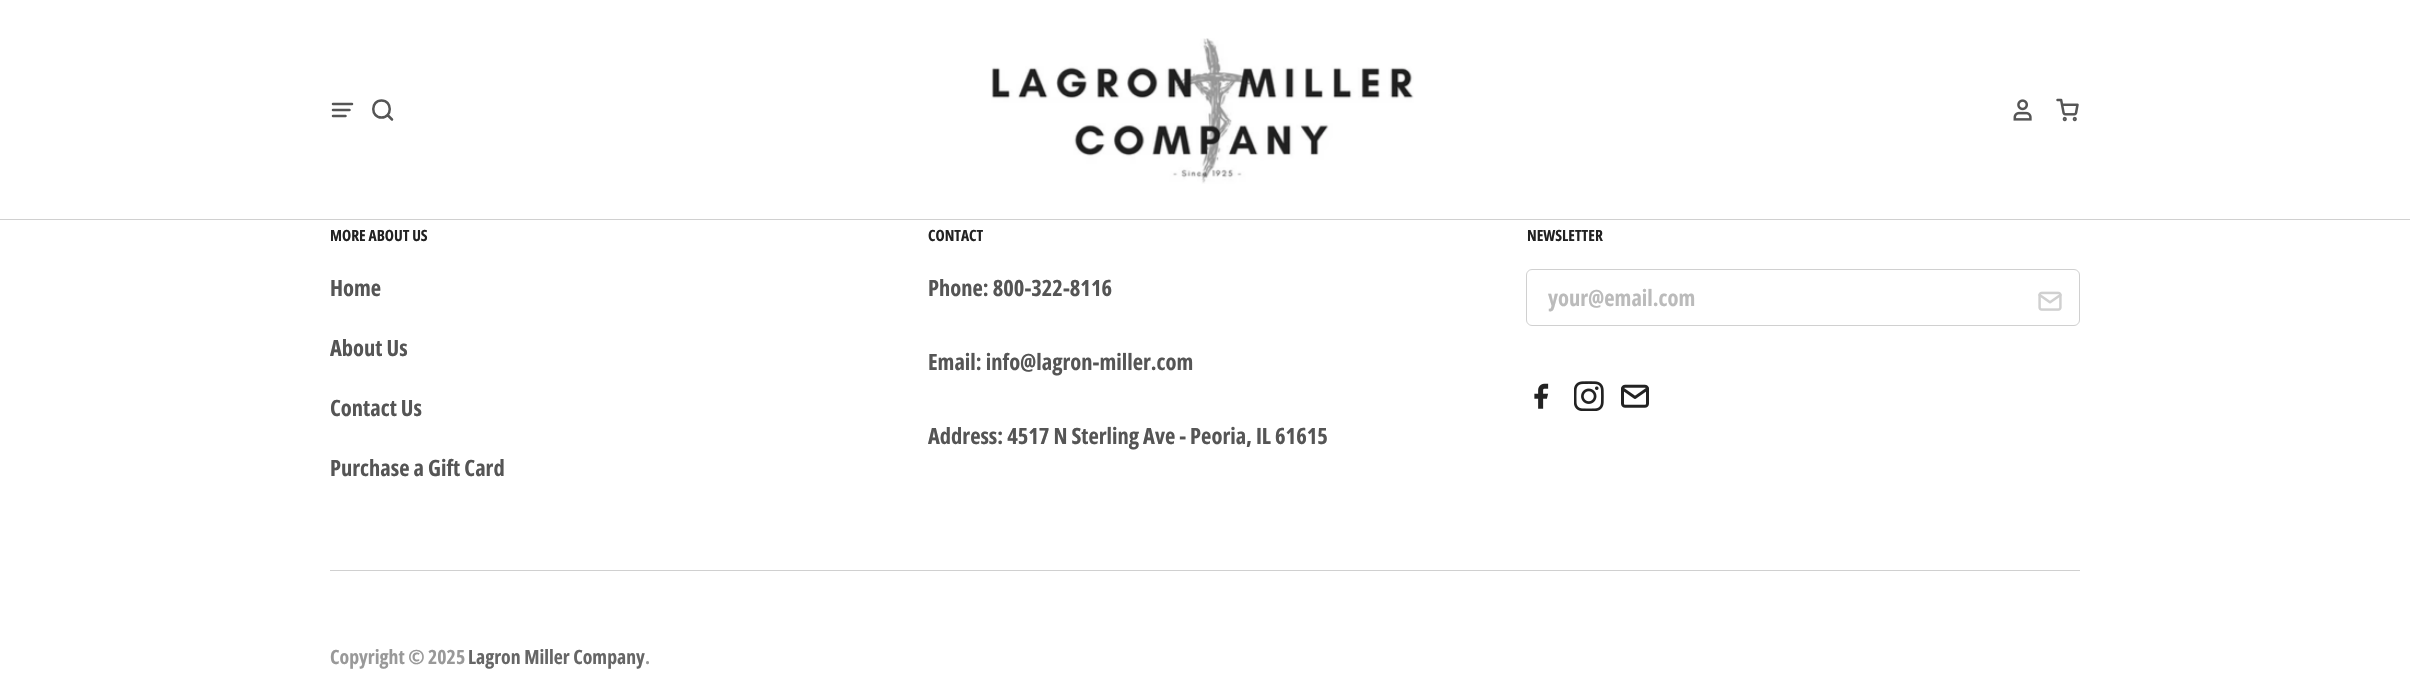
void draw(SkCanvas* canvas) {
	SkPaint fill;
	fill.setAntiAlias(true);
	auto makeFont = [&](const char* family, int weight, float size, bool italic = false) {
		SkFontStyle style(weight, SkFontStyle::kNormal_Width,
			italic ? SkFontStyle::kItalic_Slant : SkFontStyle::kUpright_Slant);
		SkFont result(fontMgr->matchFamilyStyle(family, style), size);
		result.setSubpixel(true);
		return result;
	};
	auto text = [&](const char* s, float x, float y, const SkFont& font) {
		canvas->drawString(s, x, y, font, fill);
	};
	auto box = [&](float l, float t, float r, float b) {
		canvas->drawRect(SkRect::MakeLTRB(l, t, r, b), fill);
	};
	auto picture = [&](const char* path, float l, float t, float r, float b) {
		auto image = SkImages::DeferredFromEncodedData(SkData::MakeFromFileName(path));
		canvas->drawImageRect(image, SkRect::MakeLTRB(l, t, r, b), SkSamplingOptions());
	};
	canvas->clear(0xFFFFFFFF);
	fill.setColor(0xFFD0D0D0);
	box(0, 219, 2410, 220);
	fill.setStyle(SkPaint::kStroke_Style);
	fill.setStrokeWidth(2.5f);
	fill.setStrokeCap(SkPaint::kRound_Cap);
	fill.setStrokeJoin(SkPaint::kRound_Join);
	fill.setColor(0xFF555555);
	canvas->drawPath(SkPathBuilder().moveTo(381.5f, 100.5f).cubicTo(370.5f, 100.5f, 370.5f, 117.5f, 381.5f, 117.5f).cubicTo(392.5f, 117.5f, 392.5f, 100.5f, 381.5f, 100.5f).close().moveTo(392, 119.5f).lineTo(387.5f, 115).close().moveTo(333, 104).lineTo(352, 104).moveTo(333, 110).lineTo(349.5f, 110).moveTo(333, 116).lineTo(345.5f, 116).detach(), fill);
	picture("image0.png", 991, 38, 1414, 184);
	picture("image1.png", 2013, 99, 2032, 121);
	picture("image2.png", 2056, 98, 2079, 122);
	fill.setStrokeWidth(1);
	fill.setStrokeCap(SkPaint::kButt_Cap);
	fill.setStrokeJoin(SkPaint::kMiter_Join);
	fill.setColor(0xFFD0D0D0);
	canvas->drawRoundRect(SkRect::MakeLTRB(1526.5f, 269.5f, 2079.5f, 325.5f), 5.5f, 5.5f, fill);
	picture("image3.png", 2038, 291, 2062, 311);
	picture("image4.png", 1534, 383, 1549, 409);
	picture("image5.png", 1574, 381, 1604, 411);
	picture("image6.png", 1621, 384, 1649, 408);
	fill.setStyle(SkPaint::kFill_Style);
	box(330, 570, 2080, 571);
	auto font1 = makeFont("Open Sans Condensed", 700, 15.5f);
	fill.setColor(0xFF222222);
	text("MORE ABOUT US", 330, 241, font1);
	auto font2 = makeFont("Open Sans Condensed", 700, 22.5f);
	fill.setColor(0xFF555555);
	text("Home", 330, 296, font2);
	text("About Us", 330, 356, font2);
	text("Contact Us", 330, 416, font2);
	text("Purchase a Gift Card", 330, 476, font2);
	fill.setColor(0xFF222222);
	text("CONTACT", 928, 241, font1);
	fill.setColor(0xFF555555);
	text("Phone: 800-322-8116", 928, 296, font2);
	text("Email: info@lagron-miller.com", 928, 370, font2);
	text("Address: 4517 N Sterling Ave - Peoria, IL 61615", 928, 444, font2);
	fill.setColor(0xFF222222);
	text("NEWSLETTER", 1527, 241, font1);
	fill.setColor(0xFFBBBBBB);
	text("your@email.com", 1548, 306, font2);
	auto font3 = makeFont("Open Sans Condensed", 700, 19.75f);
	fill.setColor(0xFF999999);
	text("Copyright © 2025", 330, 664, font3);
	fill.setColor(0xFF666666);
	text("Lagron Miller Company", 468, 664, font3);
	fill.setColor(0xFF999999);
	text(".", 645, 664, font3);
}
